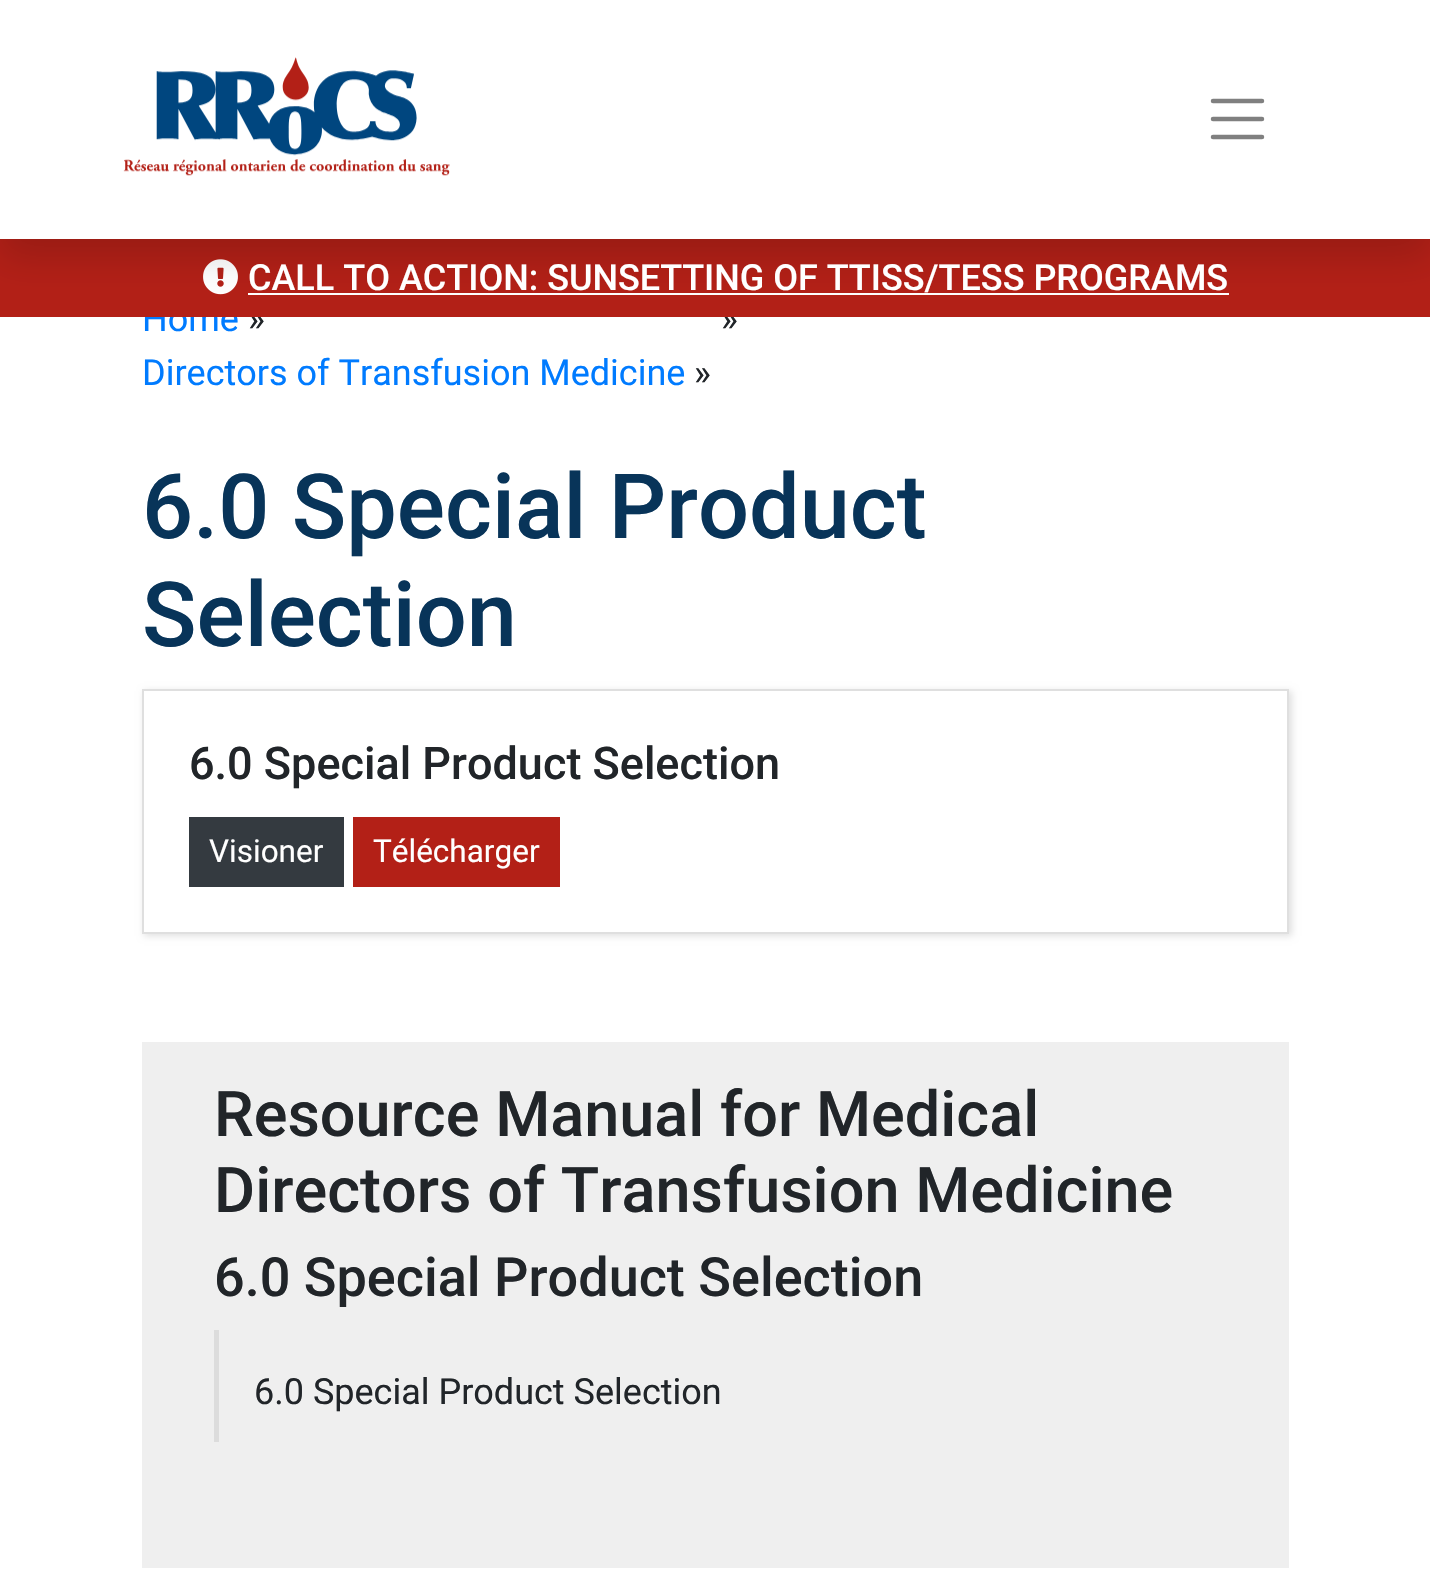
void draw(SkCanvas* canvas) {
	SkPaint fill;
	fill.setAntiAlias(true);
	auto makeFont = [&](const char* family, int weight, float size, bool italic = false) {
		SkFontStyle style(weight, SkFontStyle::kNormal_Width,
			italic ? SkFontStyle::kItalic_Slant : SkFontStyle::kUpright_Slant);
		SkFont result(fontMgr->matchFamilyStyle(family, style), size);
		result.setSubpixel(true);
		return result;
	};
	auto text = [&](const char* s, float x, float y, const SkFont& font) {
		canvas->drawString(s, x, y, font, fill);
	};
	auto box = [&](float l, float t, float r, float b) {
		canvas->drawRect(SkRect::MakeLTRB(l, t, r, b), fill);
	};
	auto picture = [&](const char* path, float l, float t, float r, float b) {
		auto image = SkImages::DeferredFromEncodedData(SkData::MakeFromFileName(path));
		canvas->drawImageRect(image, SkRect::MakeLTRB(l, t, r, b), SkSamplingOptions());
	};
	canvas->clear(0xFFFFFFFF);
	fill.setColor(0x1F000000);
	fill.setMaskFilter(SkMaskFilter::MakeBlur(kNormal_SkBlurStyle, 3.5f));
	canvas->drawRect(SkRect::MakeLTRB(144, 691, 1292, 936), fill);
	fill.setMaskFilter(nullptr);
	fill.setColor(0xFFFFFFFF);
	canvas->drawRect(SkRect::MakeLTRB(143, 690, 1288, 933), fill);
	fill.setStyle(SkPaint::kStroke_Style);
	fill.setStrokeWidth(2);
	fill.setColor(0xFFDFDFDF);
	canvas->drawRect(SkRect::MakeLTRB(143, 690, 1288, 933), fill);
	fill.setStyle(SkPaint::kFill_Style);
	fill.setColor(0xFF343A40);
	box(189, 817, 344, 887);
	fill.setColor(0xFFB32017);
	box(353, 817, 560, 887);
	fill.setColor(0xFFEFEFEF);
	box(142, 1042, 1289, 1568);
	fill.setColor(0xFFDCDCDC);
	box(214, 1330, 219, 1442);
	auto font1 = makeFont("Roboto", 400, 36);
	fill.setColor(0xFF007BFF);
	text("Home", 142, 331, font1);
	fill.setColor(0xFF212529);
	text("»", 248, 331, font1);
	text("»", 721, 331, font1);
	fill.setColor(0xFFB32017);
	box(0, 239, 1430, 317);
	fill.setColor(0xFFFFFFFF);
	box(248, 293, 1229, 295);
	picture("image1.png", 203, 259, 238, 295);
	fill.setColor(0x26000000);
	fill.setMaskFilter(SkMaskFilter::MakeBlur(kNormal_SkBlurStyle, 18));
	canvas->drawRect(SkRect::MakeLTRB(0, 18, 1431, 257), fill);
	fill.setMaskFilter(nullptr);
	fill.setColor(0xFFFFFFFF);
	box(0, 0, 1430, 239);
	fill.setStyle(SkPaint::kStroke_Style);
	fill.setStrokeWidth(4.5f);
	fill.setStrokeCap(SkPaint::kRound_Cap);
	fill.setColor(0xFF808080);
	canvas->drawPath(SkPathBuilder().moveTo(1213, 101).lineTo(1262, 101).moveTo(1213, 119).lineTo(1262, 119).moveTo(1213, 137).lineTo(1262, 137).detach(), fill);
	picture("image0.png", 123, 57, 450, 176);
	auto font2 = makeFont("Roboto", 500, 36);
	fill.setStyle(SkPaint::kFill_Style);
	fill.setColor(0xFFFFFFFF);
	text("CALL TO ACTION: SUNSETTING OF TTISS/TESS PROGRAMS", 248, 290, font2);
	fill.setColor(0xFF007BFF);
	text("Directors of Transfusion Medicine", 142, 385, font1);
	fill.setColor(0xFF212529);
	text("»", 694, 385, font1);
	auto font3 = makeFont("Roboto", 500, 90);
	fill.setColor(0xFF083459);
	text("6.0 Special Product", 142, 538, font3);
	text("Selection", 142, 646, font3);
	auto font4 = makeFont("Roboto", 500, 45);
	fill.setColor(0xFF212529);
	text("6.0 Special Product Selection", 189, 779, font4);
	auto font5 = makeFont("Roboto", 400, 31.5f);
	fill.setColor(0xFFFFFFFF);
	text("Visioner", 209, 862, font5);
	text("Télécharger", 373, 862, font5);
	auto font6 = makeFont("Roboto", 500, 63);
	fill.setColor(0xFF212529);
	text("Resource Manual for Medical", 214, 1136, font6);
	text("Directors of Transfusion Medicine", 214, 1212, font6);
	auto font7 = makeFont("Roboto", 500, 54);
	text("6.0 Special Product Selection", 214, 1296, font7);
	text("6.0 Special Product Selection", 254, 1404, font1);
}
